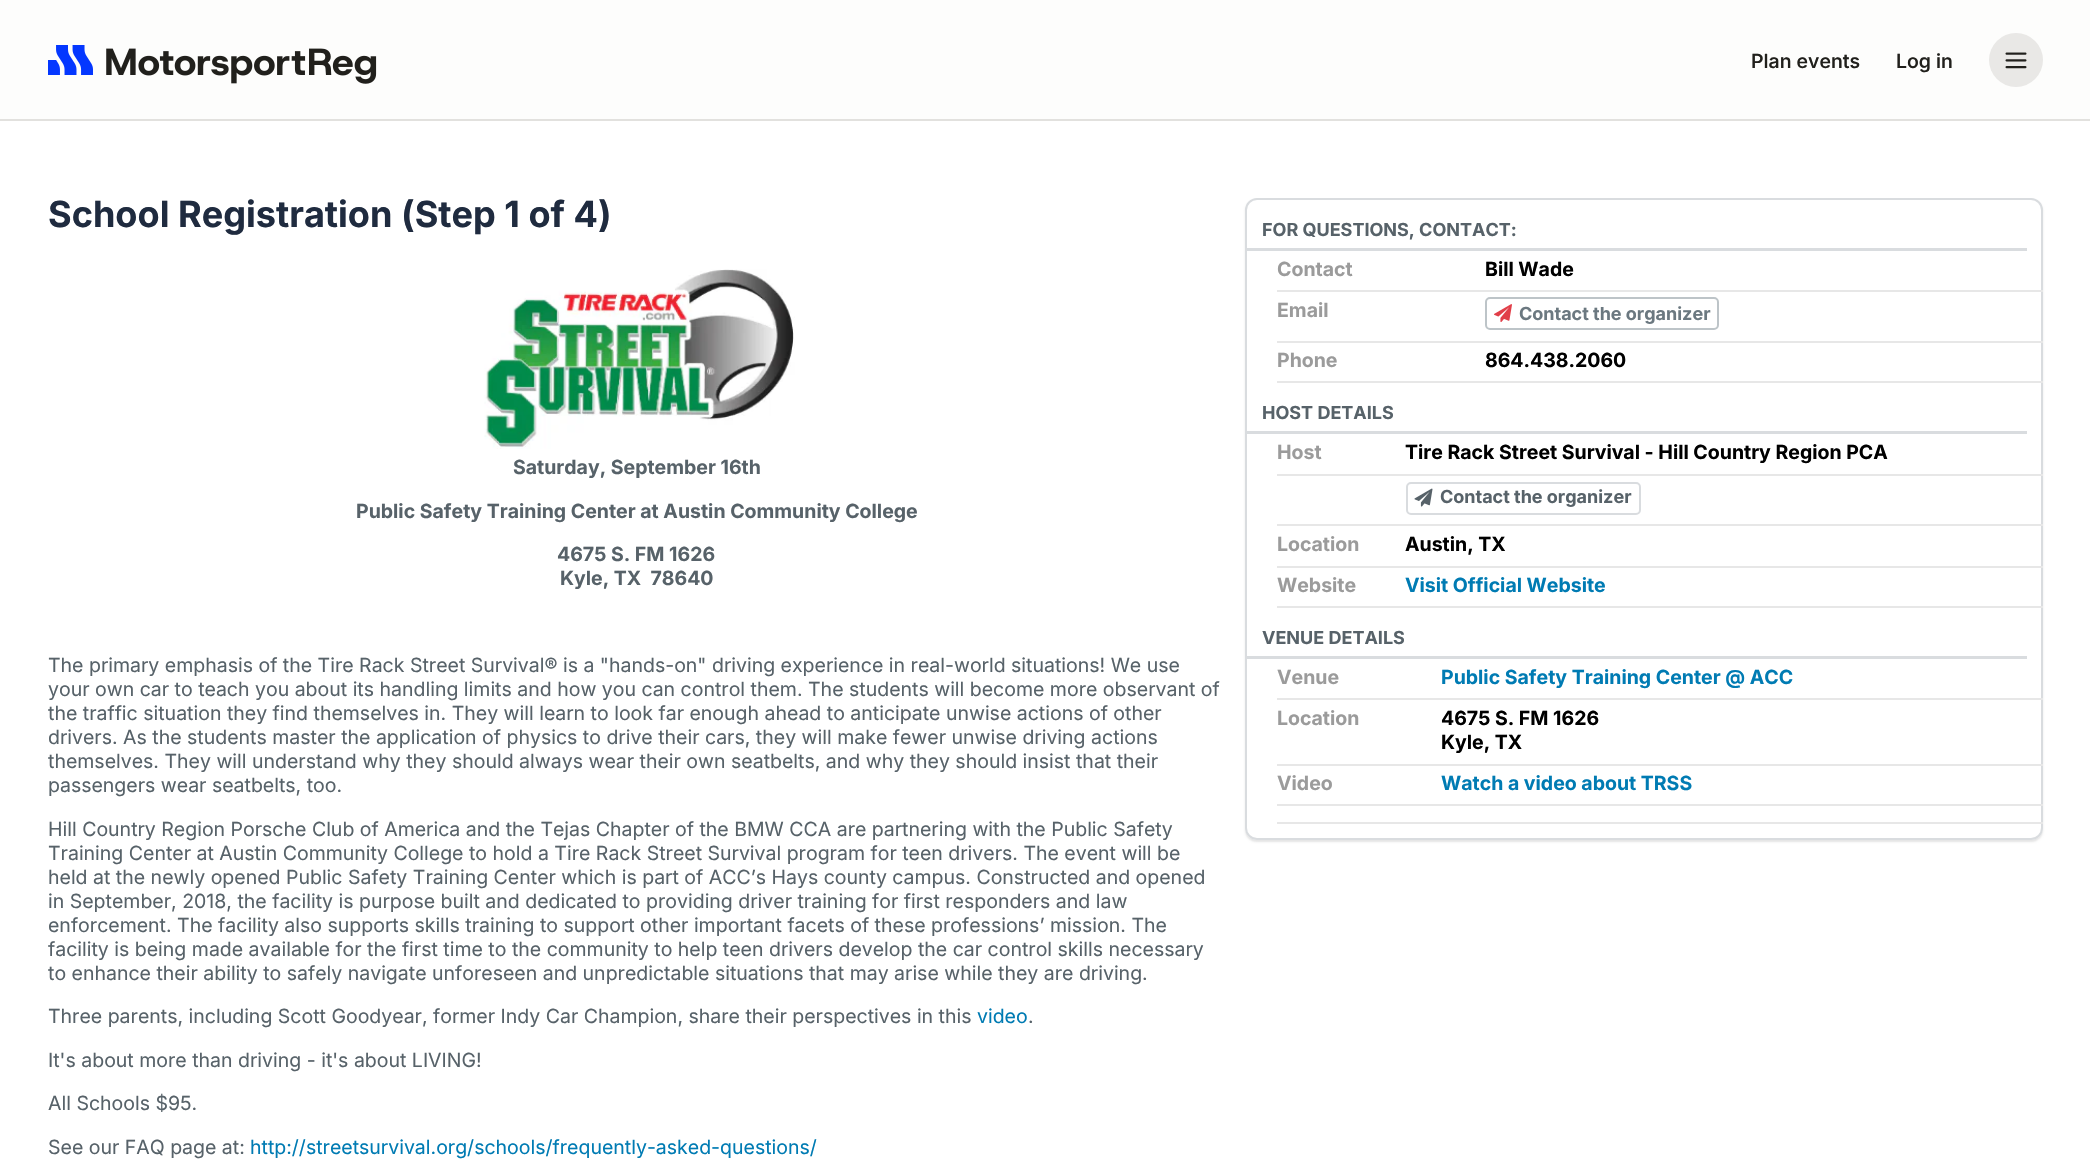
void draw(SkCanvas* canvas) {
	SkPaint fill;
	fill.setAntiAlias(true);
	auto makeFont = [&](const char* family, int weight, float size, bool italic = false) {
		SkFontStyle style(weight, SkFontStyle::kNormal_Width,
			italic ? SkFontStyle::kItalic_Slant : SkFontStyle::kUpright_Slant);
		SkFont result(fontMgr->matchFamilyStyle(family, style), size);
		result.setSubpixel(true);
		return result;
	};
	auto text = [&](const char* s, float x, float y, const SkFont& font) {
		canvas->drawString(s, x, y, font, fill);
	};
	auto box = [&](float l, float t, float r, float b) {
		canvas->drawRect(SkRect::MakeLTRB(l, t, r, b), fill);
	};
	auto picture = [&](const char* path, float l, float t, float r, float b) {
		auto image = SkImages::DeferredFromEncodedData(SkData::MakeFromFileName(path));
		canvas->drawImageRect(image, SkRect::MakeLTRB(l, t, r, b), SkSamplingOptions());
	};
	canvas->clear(0xFFFFFFFF);
	fill.setColor(0xFFFDFDFC);
	box(0, 0, 2090, 119);
	fill.setColor(0xFFE2E1DE);
	box(0, 119, 2090, 121);
	picture("image0.png", 48, 45, 377, 84);
	fill.setColor(0xFFE9E8E6);
	canvas->drawCircle(2016, 60, 27, fill);
	picture("image1.png", 2005, 52, 2027, 69);
	picture("image2.png", 484, 269, 795, 449);
	canvas->save();
	canvas->clipPath(SkPathBuilder(SkPathFillType::kEvenOdd).moveTo(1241, 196).lineTo(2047, 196).lineTo(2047, 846).lineTo(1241, 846).close().moveTo(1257, 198).lineTo(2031, 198).cubicTo(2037.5f, 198, 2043, 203.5f, 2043, 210).lineTo(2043, 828).cubicTo(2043, 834.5f, 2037.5f, 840, 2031, 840).lineTo(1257, 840).cubicTo(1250.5f, 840, 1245, 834.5f, 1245, 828).lineTo(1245, 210).cubicTo(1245, 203.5f, 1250.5f, 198, 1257, 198).close().detach(), true);
	fill.setColor(0x1A000000);
	fill.setMaskFilter(SkMaskFilter::MakeBlur(kNormal_SkBlurStyle, 1));
	canvas->drawRoundRect(SkRect::MakeLTRB(1245, 200, 2043, 842), 12, 12, fill);
	fill.setMaskFilter(nullptr);
	canvas->restore();
	fill.setStyle(SkPaint::kStroke_Style);
	fill.setStrokeWidth(2);
	fill.setColor(0xFFD9DCDF);
	canvas->drawRoundRect(SkRect::MakeLTRB(1246, 199, 2042, 839), 11, 11, fill);
	fill.setStyle(SkPaint::kFill_Style);
	box(1247, 248, 2027, 251);
	fill.setColor(0xFFE7E7E7);
	box(1277, 290, 2043, 292);
	box(1277, 341, 2043, 343);
	fill.setStyle(SkPaint::kStroke_Style);
	fill.setColor(0xFFBDC4C8);
	canvas->drawRoundRect(SkRect::MakeLTRB(1486, 298, 1718, 329), 4, 4, fill);
	picture("image3.png", 1494, 304, 1512, 322);
	fill.setStyle(SkPaint::kFill_Style);
	fill.setColor(0xFFE7E7E7);
	box(1277, 381, 2043, 383);
	fill.setColor(0xFFD9DCDF);
	box(1247, 431, 2027, 434);
	fill.setColor(0xFFE7E7E7);
	box(1277, 474, 2043, 476);
	box(1277, 524, 2043, 526);
	fill.setStyle(SkPaint::kStroke_Style);
	fill.setColor(0xFFD9DCDF);
	canvas->drawRoundRect(SkRect::MakeLTRB(1407, 483, 1640, 514), 4, 4, fill);
	picture("image4.png", 1414, 488, 1433, 507);
	fill.setStyle(SkPaint::kFill_Style);
	fill.setColor(0xFFE7E7E7);
	box(1277, 566, 2043, 568);
	box(1277, 606, 2043, 608);
	fill.setColor(0xFFD9DCDF);
	box(1247, 656, 2027, 659);
	fill.setColor(0xFFE7E7E7);
	box(1277, 698, 2043, 700);
	box(1277, 764, 2043, 766);
	box(1277, 804, 2043, 806);
	box(1277, 822, 2043, 824);
	auto font1 = makeFont("Inter", 500, 19.5f);
	fill.setColor(0xFF21201C);
	text("Plan events", 1751, 68, font1);
	text("Log in", 1896, 68, font1);
	auto font2 = makeFont("Inter", 700, 36.1f);
	fill.setColor(0xFF1F2B3F);
	text("School Registration (Step 1 of 4)", 48, 227, font2);
	auto font3 = makeFont("Inter", 700, 19.5f);
	fill.setColor(0xFF576269);
	text("Saturday, September 16th", 513, 474, font3);
	text("Public Safety Training Center at Austin Community College", 356, 518, font3);
	text("4675 S. FM 1626", 557, 561, font3);
	text("Kyle, TX  78640", 560, 585, font3);
	auto font4 = makeFont("Inter", 400, 19.5f);
	text("The primary emphasis of the Tire Rack Street Survival® is a \"hands-on\" driving experience in real-world situations! We use", 48, 672, font4);
	text("your own car to teach you about its handling limits and how you can control them. The students will become more observant of", 48, 696, font4);
	text("the traffic situation they find themselves in. They will learn to look far enough ahead to anticipate unwise actions of other", 48, 720, font4);
	text("drivers. As the students master the application of physics to drive their cars, they will make fewer unwise driving actions", 48, 744, font4);
	text("themselves. They will understand why they should always wear their own seatbelts, and why they should insist that their", 48, 768, font4);
	text("passengers wear seatbelts, too.", 48, 792, font4);
	text("Hill Country Region Porsche Club of America and the Tejas Chapter of the BMW CCA are partnering with the Public Safety", 48, 836, font4);
	text("Training Center at Austin Community College to hold a Tire Rack Street Survival program for teen drivers. The event will be", 48, 860, font4);
	text("held at the newly opened Public Safety Training Center which is part of ACC’s Hays county campus. Constructed and opened", 48, 884, font4);
	text("in September, 2018, the facility is purpose built and dedicated to providing driver training for first responders and law", 48, 908, font4);
	text("enforcement. The facility also supports skills training to support other important facets of these professions’ mission. The", 48, 932, font4);
	text("facility is being made available for the first time to the community to help teen drivers develop the car control skills necessary", 48, 956, font4);
	text("to enhance their ability to safely navigate unforeseen and unpredictable situations that may arise while they are driving.", 48, 980, font4);
	text("Three parents, including Scott Goodyear, former Indy Car Champion, share their perspectives in this", 48, 1023, font4);
	fill.setColor(0xFF007BB3);
	text("video", 977, 1023, font4);
	fill.setColor(0xFF576269);
	text(".", 1028, 1023, font4);
	text("It's about more than driving - it's about LIVING!", 48, 1067, font4);
	text("All Schools $95.", 48, 1110, font4);
	text("See our FAQ page at:", 48, 1154, font4);
	fill.setColor(0xFF007BB3);
	text("http://streetsurvival.org/schools/frequently-asked-questions/", 250, 1154, font4);
	auto font5 = makeFont("Inter", 700, 18);
	fill.setColor(0xFF576269);
	text("FOR QUESTIONS, CONTACT:", 1262, 236, font5);
	fill.setColor(0xFF9B9B9B);
	text("Contact", 1277, 276, font3);
	fill.setColor(0xFF000000);
	text("Bill Wade", 1485, 276, font3);
	fill.setColor(0xFF9B9B9B);
	text("Email", 1277, 317, font3);
	fill.setColor(0xFF6B7880);
	text("Contact the organizer", 1519, 320, font5);
	fill.setColor(0xFF9B9B9B);
	text("Phone", 1277, 367, font3);
	fill.setColor(0xFF000000);
	text("864.438.2060", 1485, 367, font3);
	fill.setColor(0xFF576269);
	text("HOST DETAILS", 1262, 419, font5);
	fill.setColor(0xFF9B9B9B);
	text("Host", 1277, 459, font3);
	fill.setColor(0xFF000000);
	text("Tire Rack Street Survival - Hill Country Region PCA", 1405, 459, font3);
	fill.setColor(0xFF576269);
	text("Contact the organizer", 1440, 503, font5);
	fill.setColor(0xFF9B9B9B);
	text("Location", 1277, 551, font3);
	fill.setColor(0xFF000000);
	text("Austin, TX", 1405, 551, font3);
	fill.setColor(0xFF9B9B9B);
	text("Website", 1277, 592, font3);
	fill.setColor(0xFF007BB3);
	text("Visit Official Website", 1405, 592, font3);
	fill.setColor(0xFF576269);
	text("VENUE DETAILS", 1262, 644, font5);
	fill.setColor(0xFF9B9B9B);
	text("Venue", 1277, 684, font3);
	fill.setColor(0xFF007BB3);
	text("Public Safety Training Center @ ACC", 1441, 684, font3);
	fill.setColor(0xFF9B9B9B);
	text("Location", 1277, 725, font3);
	fill.setColor(0xFF000000);
	text("4675 S. FM 1626", 1441, 725, font3);
	text("Kyle, TX", 1441, 749, font3);
	fill.setColor(0xFF9B9B9B);
	text("Video", 1277, 790, font3);
	fill.setColor(0xFF007BB3);
	text("Watch a video about TRSS", 1441, 790, font3);
}
